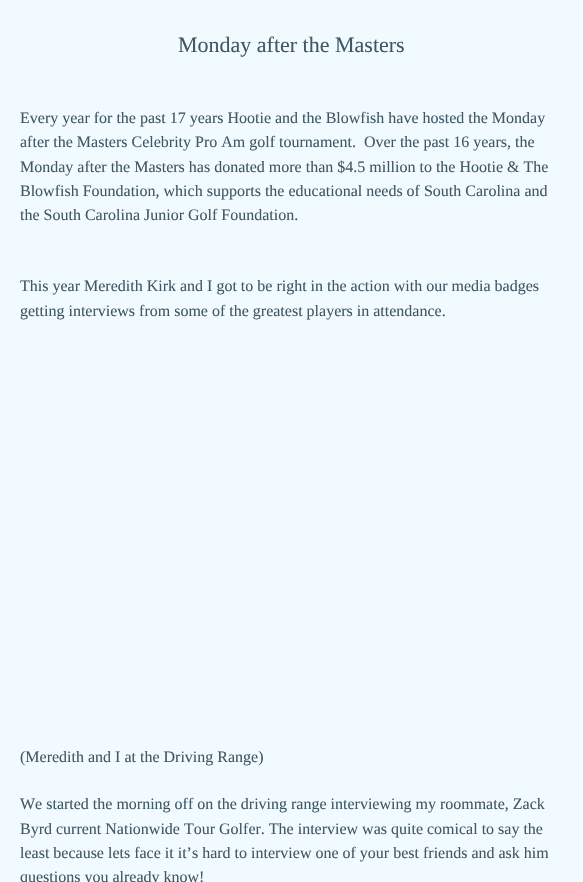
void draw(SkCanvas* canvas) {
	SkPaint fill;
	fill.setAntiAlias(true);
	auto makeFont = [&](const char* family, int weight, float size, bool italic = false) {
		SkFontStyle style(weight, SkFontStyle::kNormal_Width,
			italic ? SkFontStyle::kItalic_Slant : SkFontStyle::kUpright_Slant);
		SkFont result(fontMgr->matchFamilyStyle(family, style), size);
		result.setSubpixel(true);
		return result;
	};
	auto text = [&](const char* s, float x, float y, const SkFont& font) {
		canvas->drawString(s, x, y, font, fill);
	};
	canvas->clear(0xFFF0FAFF);
	auto font1 = makeFont("Liberation Serif", 400, 22);
	fill.setColor(0xFF415762);
	text("Monday after the Masters", 178, 52, font1);
	auto font2 = makeFont("Liberation Serif", 400, 16);
	text("Every year for the past 17 years Hootie and the Blowfish have hosted the Monday", 20, 123, font2);
	text("after the Masters Celebrity Pro Am golf tournament.  Over the past 16 years, the", 20, 147, font2);
	text("Monday after the Masters has donated more than $4.5 million to the Hootie & The", 20, 172, font2);
	text("Blowfish Foundation, which supports the educational needs of South Carolina and", 20, 196, font2);
	text("the South Carolina Junior Golf Foundation.", 20, 220, font2);
	text("This year Meredith Kirk and I got to be right in the action with our media badges", 20, 291, font2);
	text("getting interviews from some of the greatest players in attendance.", 20, 316, font2);
	text("(Meredith and I at the Driving Range)", 20, 762, font2);
	text("We started the morning off on the driving range interviewing my roommate, Zack", 20, 809, font2);
	text("Byrd current Nationwide Tour Golfer. The interview was quite comical to say the", 20, 834, font2);
	text("least because lets face it it’s hard to interview one of your best friends and ask him", 20, 858, font2);
	text("questions you already know!", 20, 882, font2);
}
